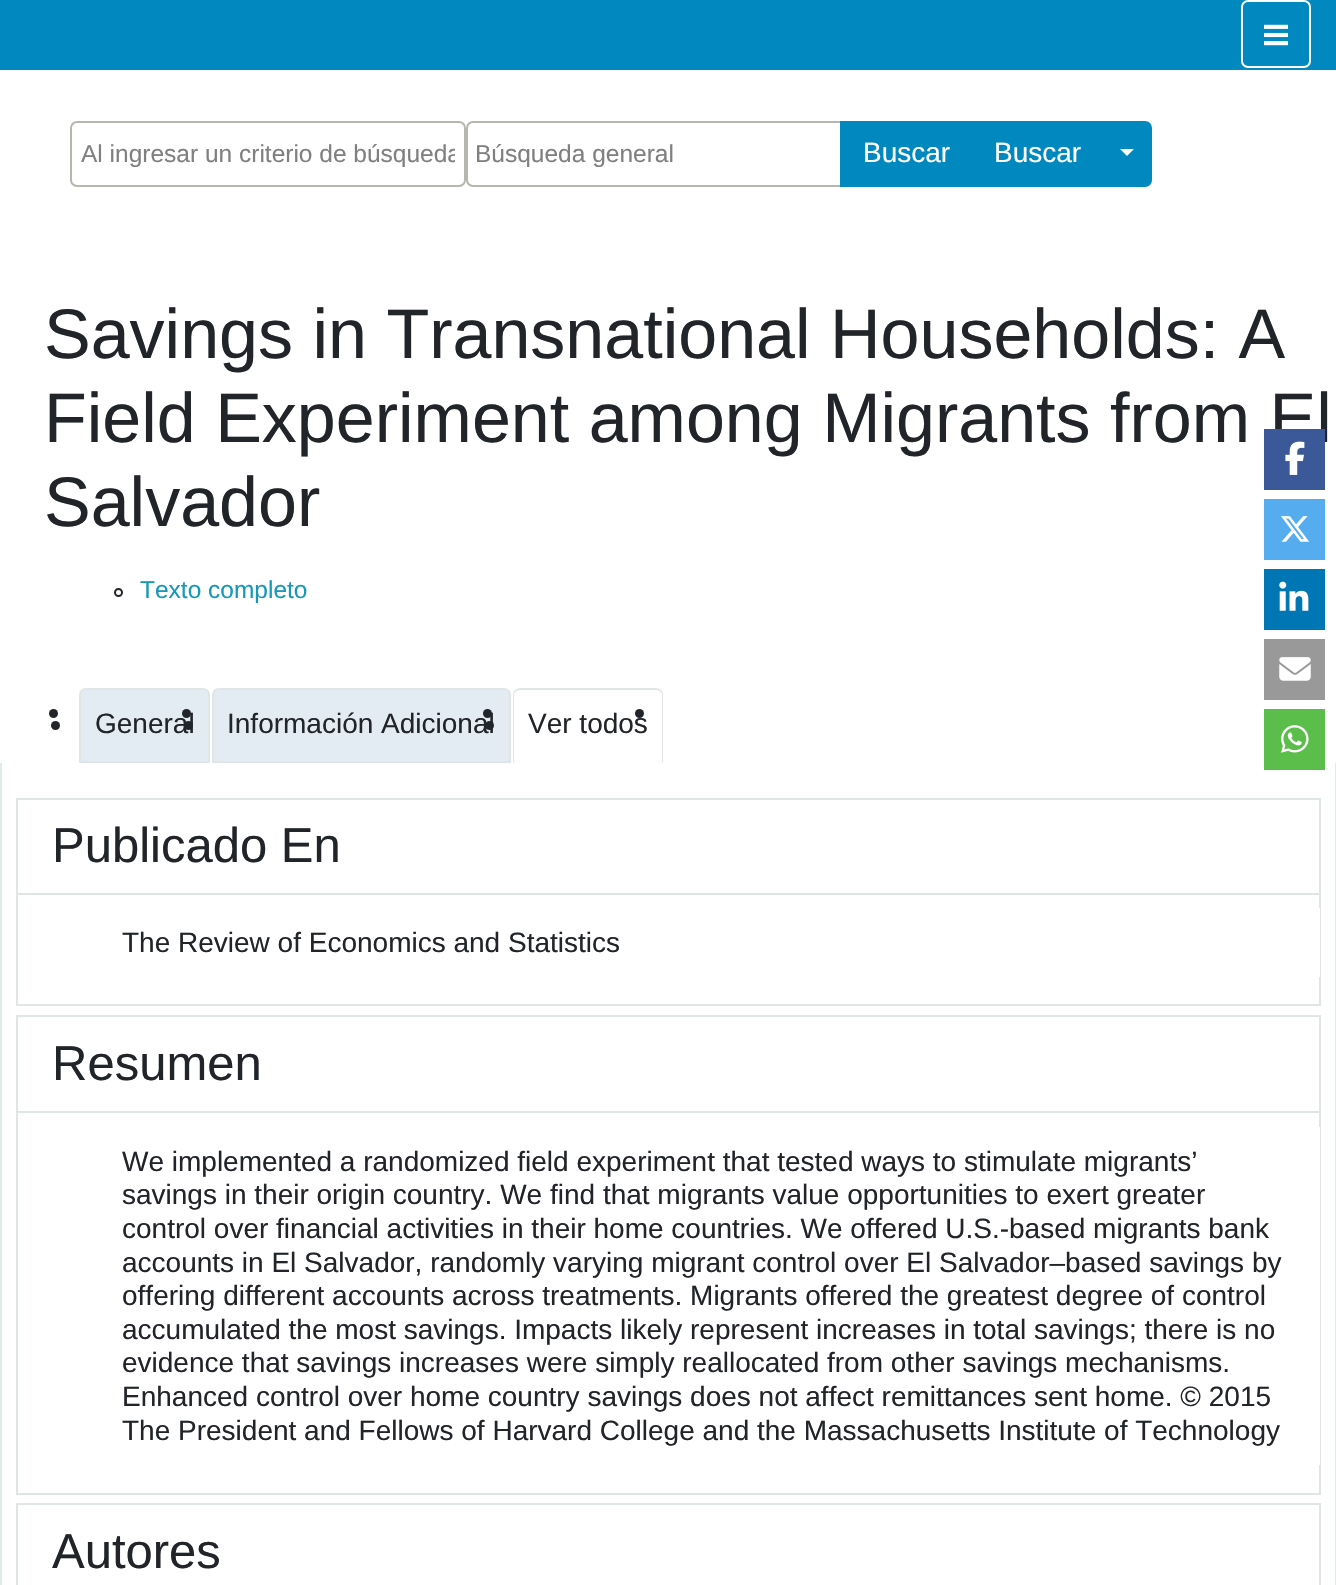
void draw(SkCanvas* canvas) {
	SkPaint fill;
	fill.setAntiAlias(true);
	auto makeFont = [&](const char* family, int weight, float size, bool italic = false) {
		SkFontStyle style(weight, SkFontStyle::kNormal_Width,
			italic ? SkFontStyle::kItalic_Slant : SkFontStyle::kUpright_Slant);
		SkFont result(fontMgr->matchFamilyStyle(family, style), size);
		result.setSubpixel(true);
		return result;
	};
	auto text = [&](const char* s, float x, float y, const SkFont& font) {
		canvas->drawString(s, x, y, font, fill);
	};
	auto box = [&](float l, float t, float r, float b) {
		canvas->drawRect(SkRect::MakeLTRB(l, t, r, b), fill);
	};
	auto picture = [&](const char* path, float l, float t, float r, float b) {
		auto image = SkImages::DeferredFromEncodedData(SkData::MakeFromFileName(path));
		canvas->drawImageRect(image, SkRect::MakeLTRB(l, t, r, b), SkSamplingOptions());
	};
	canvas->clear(0xFFFFFFFF);
	fill.setColor(0xFF0088BF);
	box(0, 0, 1336, 70);
	fill.setStyle(SkPaint::kStroke_Style);
	fill.setStrokeWidth(2);
	fill.setColor(0xFFFFFFFF);
	canvas->drawRoundRect(SkRect::MakeLTRB(1242, 1, 1310, 67), 6, 6, fill);
	picture("image0.png", 1264, 24, 1288, 46);
	fill.setColor(0xFFB5B7AE);
	canvas->drawRoundRect(SkRect::MakeLTRB(71, 122, 465, 186), 6, 6, fill);
	canvas->drawRoundRect(SkRect::MakeLTRB(467, 122, 858, 186), 6, 6, fill);
	fill.setStyle(SkPaint::kFill_Style);
	fill.setColor(0xFF0088BF);
	box(840, 121, 1103, 187);
	canvas->drawPath(SkPathBuilder().moveTo(1104, 122).lineTo(1145, 122).cubicTo(1148.5f, 122, 1151, 124.5f, 1151, 128).lineTo(1151, 180).cubicTo(1151, 183.5f, 1148.5f, 186, 1145, 186).lineTo(1104, 186).close().detach(), fill);
	fill.setStyle(SkPaint::kStroke_Style);
	canvas->drawPath(SkPathBuilder().moveTo(1104, 122).lineTo(1145, 122).cubicTo(1148.5f, 122, 1151, 124.5f, 1151, 128).lineTo(1151, 180).cubicTo(1151, 183.5f, 1148.5f, 186, 1145, 186).lineTo(1104, 186).close().detach(), fill);
	fill.setStyle(SkPaint::kFill_Style);
	fill.setColor(0xFFFFFFFF);
	canvas->drawPath(SkPathBuilder().moveTo(1120, 149).lineTo(1134, 149).lineTo(1127, 156).close().detach(), fill);
	fill.setStyle(SkPaint::kStroke_Style);
	fill.setColor(0xFF212529);
	canvas->drawCircle(118.5f, 592.5f, 3.5f, fill);
	fill.setStyle(SkPaint::kFill_Style);
	canvas->drawCircle(53.5f, 713.5f, 4.5f, fill);
	fill.setColor(0xFFE4ECF3);
	canvas->drawPath(SkPathBuilder().moveTo(86, 689).lineTo(203, 689).cubicTo(206.5f, 689, 209, 691.5f, 209, 695).lineTo(209, 762).lineTo(80, 762).lineTo(80, 695).cubicTo(80, 691.5f, 82.5f, 689, 86, 689).close().detach(), fill);
	fill.setStyle(SkPaint::kStroke_Style);
	fill.setColor(0xFFDFE6E5);
	canvas->drawPath(SkPathBuilder().moveTo(86, 689).lineTo(203, 689).cubicTo(206.5f, 689, 209, 691.5f, 209, 695).lineTo(209, 762).lineTo(80, 762).lineTo(80, 695).cubicTo(80, 691.5f, 82.5f, 689, 86, 689).close().detach(), fill);
	fill.setStyle(SkPaint::kFill_Style);
	fill.setColor(0xFF212529);
	canvas->drawCircle(186.5f, 713.5f, 4.5f, fill);
	fill.setColor(0xFFE4ECF3);
	canvas->drawPath(SkPathBuilder().moveTo(219, 689).lineTo(504, 689).cubicTo(507.5f, 689, 510, 691.5f, 510, 695).lineTo(510, 762).lineTo(213, 762).lineTo(213, 695).cubicTo(213, 691.5f, 215.5f, 689, 219, 689).close().detach(), fill);
	fill.setStyle(SkPaint::kStroke_Style);
	fill.setColor(0xFFDFE6E5);
	canvas->drawPath(SkPathBuilder().moveTo(219, 689).lineTo(504, 689).cubicTo(507.5f, 689, 510, 691.5f, 510, 695).lineTo(510, 762).lineTo(213, 762).lineTo(213, 695).cubicTo(213, 691.5f, 215.5f, 689, 219, 689).close().detach(), fill);
	fill.setStyle(SkPaint::kFill_Style);
	fill.setColor(0xFF212529);
	canvas->drawCircle(487.5f, 713.5f, 4.5f, fill);
	canvas->drawCircle(639.5f, 713.5f, 4.5f, fill);
	canvas->drawCircle(55.5f, 725.5f, 4.5f, fill);
	canvas->drawCircle(188.5f, 725.5f, 4.5f, fill);
	fill.setColor(0xFFDFE6E5);
	canvas->drawPath(SkPathBuilder().moveTo(520, 688).cubicTo(518, 688, 516, 689, 515, 690).lineTo(516, 691).lineTo(520, 690).lineTo(657, 690).lineTo(660, 691).lineTo(661, 690).cubicTo(660, 689, 658, 688, 656, 688).close().detach(), fill);
	canvas->drawPath(SkPathBuilder().moveTo(663, 763).lineTo(663, 695).cubicTo(663, 693, 662, 691, 661, 690).lineTo(660, 691).lineTo(662, 694).lineTo(662, 761).lineTo(661, 761).close().detach(), fill);
	fill.setColor(0xFFFFFFFF);
	canvas->drawPath(SkPathBuilder().moveTo(513, 763).lineTo(663, 763).lineTo(661, 761).lineTo(515, 761).close().detach(), fill);
	fill.setColor(0xFFDFE6E5);
	canvas->drawPath(SkPathBuilder().moveTo(515, 690).cubicTo(514, 691, 513, 693, 513, 695).lineTo(513, 763).lineTo(515, 761).lineTo(514, 761).lineTo(514, 694).lineTo(516, 691).close().detach(), fill);
	fill.setColor(0xFF212529);
	canvas->drawCircle(489.5f, 725.5f, 4.5f, fill);
	fill.setColor(0xFFDFEBE5);
	box(1335, 763, 1336, 1585);
	box(0, 763, 2, 1585);
	fill.setStyle(SkPaint::kStroke_Style);
	fill.setColor(0xFFDFE6E5);
	canvas->drawRect(SkRect::MakeLTRB(17, 799, 1320, 1005), fill);
	fill.setStyle(SkPaint::kFill_Style);
	box(18, 893, 1320, 895);
	fill.setColor(0xFFFFFFFF);
	box(1319, 908, 1320, 977);
	fill.setStyle(SkPaint::kStroke_Style);
	fill.setColor(0xFFDFE6E5);
	canvas->drawRect(SkRect::MakeLTRB(17, 1016, 1320, 1494), fill);
	fill.setStyle(SkPaint::kFill_Style);
	box(18, 1111, 1320, 1113);
	fill.setColor(0xFFFFFFFF);
	box(1319, 1127, 1320, 1465);
	fill.setStyle(SkPaint::kStroke_Style);
	fill.setColor(0xFFDFE6E5);
	canvas->drawRect(SkRect::MakeLTRB(17, 1504, 1320, 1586), fill);
	fill.setStyle(SkPaint::kFill_Style);
	fill.setColor(0xFF55ACEE);
	box(1264, 499, 1325, 560);
	picture("image2.png", 1281, 516, 1310, 542);
	fill.setColor(0xFF0077B5);
	box(1264, 569, 1325, 630);
	picture("image3.png", 1279, 581, 1309, 611);
	fill.setColor(0xFF999999);
	box(1264, 639, 1325, 700);
	picture("image4.png", 1279, 657, 1311, 681);
	fill.setColor(0xFF5CBE4A);
	box(1264, 709, 1325, 770);
	picture("image5.png", 1281, 725, 1309, 753);
	canvas->save();
	canvas->clipRect(SkRect::MakeLTRB(81, 140, 455, 168));
	auto font1 = makeFont("Liberation Sans", 400, 24.5f);
	fill.setColor(0xFF808080);
	text("Al ingresar un criterio de búsqueda", 81, 162, font1);
	canvas->restore();
	text("Búsqueda general", 475, 162, font1);
	auto font2 = makeFont("Liberation Sans", 400, 28);
	fill.setColor(0xFFFFFFFF);
	text("Buscar", 863, 162, font2);
	text("Buscar", 994, 162, font2);
	auto font3 = makeFont("Liberation Sans", 400, 70);
	fill.setColor(0xFF212529);
	text("Savings in Transnational Households: A", 44, 358, font3);
	text("Field Experiment among Migrants from El", 44, 442, font3);
	text("Salvador", 44, 526, font3);
	fill.setColor(0xFF1698B9);
	text("Texto completo", 140, 598, font1);
	fill.setColor(0xFF212529);
	text("General", 95, 733, font2);
	text("Información Adicional", 227, 733, font2);
	text("Ver todos", 528, 733, font2);
	auto font4 = makeFont("Liberation Sans", 400, 49);
	text("Publicado En", 52, 862, font4);
	text("The Review of Economics and Statistics", 122, 952, font2);
	text("Resumen", 52, 1080, font4);
	text("We implemented a randomized field experiment that tested ways to stimulate migrants’", 122, 1171, font2);
	text("savings in their origin country. We find that migrants value opportunities to exert greater", 122, 1204, font2);
	text("control over financial activities in their home countries. We offered U.S.-based migrants bank", 122, 1238, font2);
	text("accounts in El Salvador, randomly varying migrant control over El Salvador–based savings by", 122, 1272, font2);
	text("offering different accounts across treatments. Migrants offered the greatest degree of control", 122, 1305, font2);
	text("accumulated the most savings. Impacts likely represent increases in total savings; there is no", 122, 1339, font2);
	text("evidence that savings increases were simply reallocated from other savings mechanisms.", 122, 1372, font2);
	text("Enhanced control over home country savings does not affect remittances sent home. © 2015", 122, 1406, font2);
	text("The President and Fellows of Harvard College and the Massachusetts Institute of Technology", 122, 1440, font2);
	text("Autores", 52, 1568, font4);
	fill.setColor(0xFF3B5998);
	box(1264, 429, 1325, 490);
	picture("image1.png", 1285, 441, 1305, 475);
}
